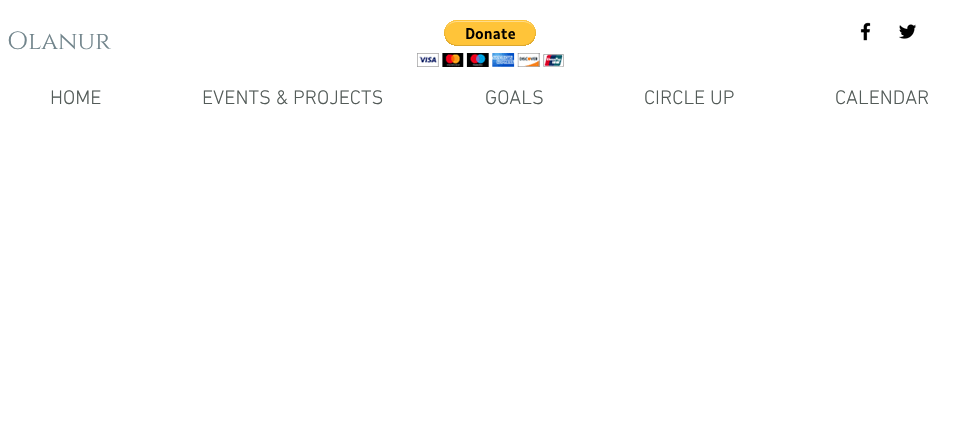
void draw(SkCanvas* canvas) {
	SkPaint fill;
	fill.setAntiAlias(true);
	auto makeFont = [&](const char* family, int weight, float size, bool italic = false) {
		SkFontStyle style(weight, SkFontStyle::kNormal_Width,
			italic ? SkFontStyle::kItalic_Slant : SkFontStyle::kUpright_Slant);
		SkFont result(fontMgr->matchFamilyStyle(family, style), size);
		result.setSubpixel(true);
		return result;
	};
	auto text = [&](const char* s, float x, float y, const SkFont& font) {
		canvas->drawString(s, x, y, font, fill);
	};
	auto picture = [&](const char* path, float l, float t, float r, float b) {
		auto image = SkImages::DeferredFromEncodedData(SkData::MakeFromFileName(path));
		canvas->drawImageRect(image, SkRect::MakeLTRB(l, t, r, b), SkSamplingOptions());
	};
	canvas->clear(0xFFFFFFFF);
	picture("image0.png", 417, 20, 564, 67);
	picture("image1.png", 860, 22, 871, 41);
	picture("image2.png", 899, 24, 917, 39);
	auto font1 = makeFont("Cinzel", 400, 25);
	fill.setColor(0xFF72858C);
	text("Olanur", 7, 49, font1);
	auto font2 = makeFont("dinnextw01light", 300, 20);
	fill.setColor(0xFF535B58);
	text("HOME", 50, 104, font2);
	text("EVENTS & PROJECTS", 202, 104, font2);
	text("GOALS", 485, 104, font2);
	text("CIRCLE UP", 644, 104, font2);
	text("CALENDAR", 835, 104, font2);
}
